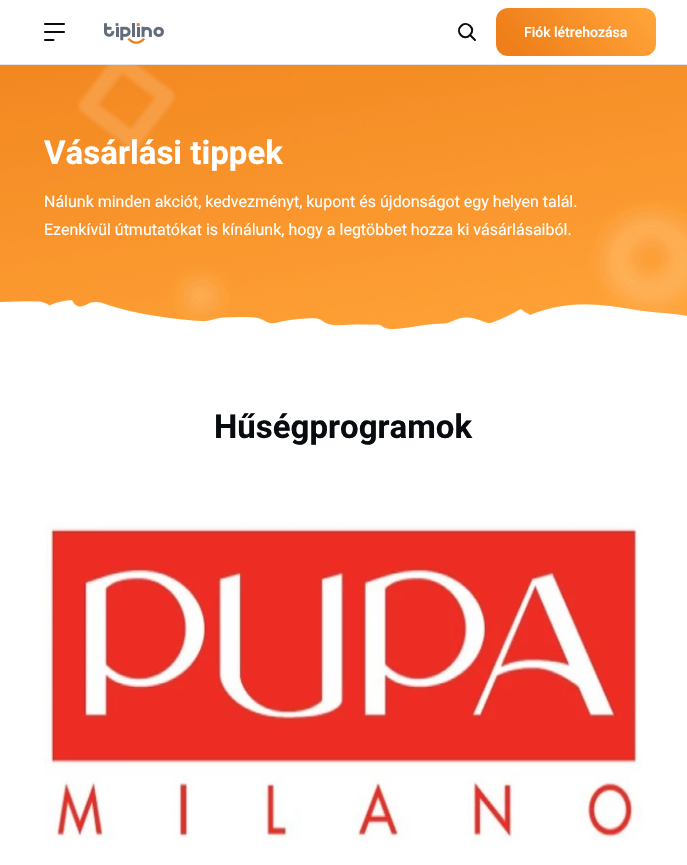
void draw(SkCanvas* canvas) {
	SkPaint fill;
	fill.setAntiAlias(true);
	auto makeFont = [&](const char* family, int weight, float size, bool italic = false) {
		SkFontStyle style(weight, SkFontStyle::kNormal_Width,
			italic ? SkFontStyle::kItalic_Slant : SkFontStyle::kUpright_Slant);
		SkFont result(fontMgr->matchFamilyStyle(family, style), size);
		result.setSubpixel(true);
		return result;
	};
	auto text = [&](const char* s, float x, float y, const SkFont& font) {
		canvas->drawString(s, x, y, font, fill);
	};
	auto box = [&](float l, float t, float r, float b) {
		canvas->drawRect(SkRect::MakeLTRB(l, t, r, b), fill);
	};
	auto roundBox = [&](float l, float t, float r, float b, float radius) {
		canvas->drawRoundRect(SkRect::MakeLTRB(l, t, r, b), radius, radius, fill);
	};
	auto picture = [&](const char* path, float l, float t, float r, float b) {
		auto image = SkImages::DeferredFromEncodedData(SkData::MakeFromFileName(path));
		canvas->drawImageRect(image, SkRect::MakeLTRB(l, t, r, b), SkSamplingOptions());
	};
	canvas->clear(0xFFFFFFFF);
	fill.setColor(0xFFE1E4E8);
	box(0, 64, 687, 65);
	picture("image0.png", 44, 23, 65, 41);
	picture("image1.png", 104, 23, 164, 44);
	fill.setStyle(SkPaint::kStroke_Style);
	fill.setStrokeWidth(2);
	fill.setStrokeCap(SkPaint::kRound_Cap);
	fill.setStrokeJoin(SkPaint::kRound_Join);
	fill.setColor(0xFF080B10);
	canvas->drawPath(SkPathBuilder().moveTo(470, 35).cubicTo(464, 41.5f, 455, 32, 461, 26).cubicTo(467, 20, 476.5f, 29, 470, 35).close().moveTo(470, 35).lineTo(475, 40).detach(), fill);
	fill.setStyle(SkPaint::kFill_Style);
	{
		const SkColor colors[] = {0xFFEF7F1A, 0xFFFFA439};
		const float stops[] = {0.13f, 0.96f};
		const SkPoint ends[] = {{516, 81}, {636, -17}};
		fill.setShader(SkGradientShader::MakeLinear(ends, colors, stops, 2, SkTileMode::kClamp));
		fill.setAlpha(255);
	}
	roundBox(496, 8, 656, 56, 12);
	picture("image2.png", 0, 65, 687, 329);
	picture("image3.png", 44, 522, 643, 841);
	auto font1 = makeFont("Roboto", 500, 14);
	fill.setShader(nullptr);
	fill.setColor(0xFFFFFFFF);
	text("Fiók létrehozása", 524, 37, font1);
	auto font2 = makeFont("Roboto", 700, 33);
	text("Vásárlási tippek", 44, 164, font2);
	auto font3 = makeFont("Roboto", 400, 16);
	text("Nálunk minden akciót, kedvezményt, kupont és újdonságot egy helyen talál.", 44, 207, font3);
	text("Ezenkívül útmutatókat is kínálunk, hogy a legtöbbet hozza ki vásárlásaiból.", 44, 235, font3);
	fill.setColor(0xFF080B10);
	text("Hűségprogramok", 214, 438, font2);
}
